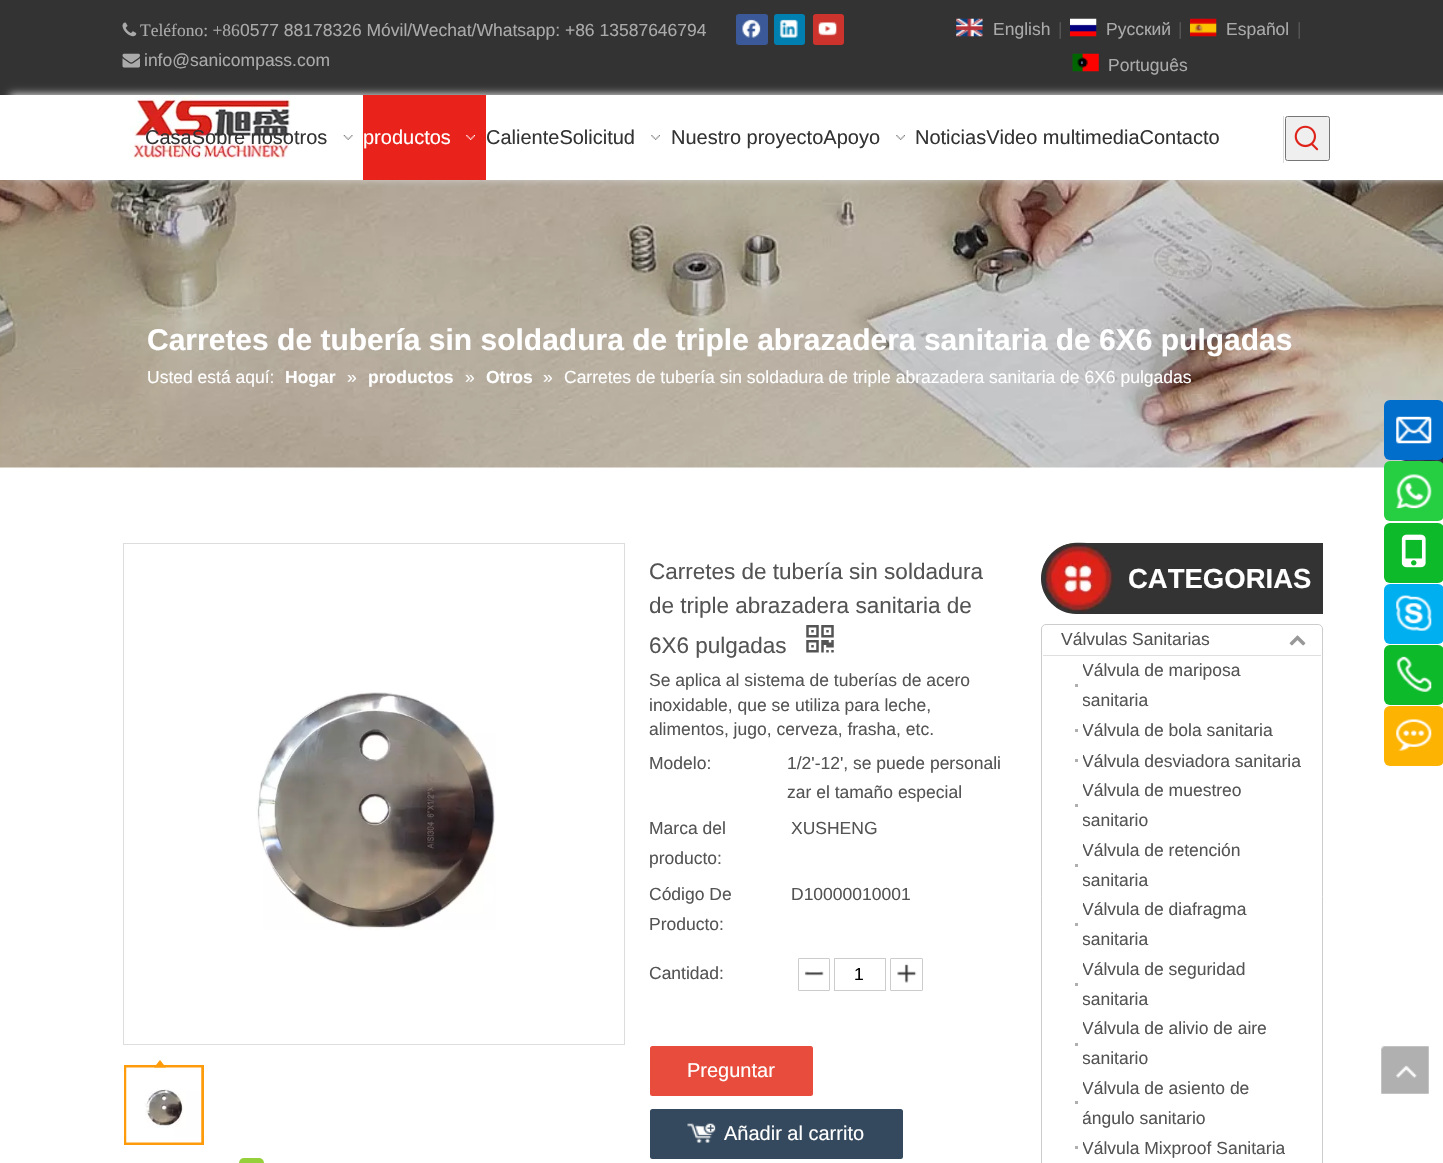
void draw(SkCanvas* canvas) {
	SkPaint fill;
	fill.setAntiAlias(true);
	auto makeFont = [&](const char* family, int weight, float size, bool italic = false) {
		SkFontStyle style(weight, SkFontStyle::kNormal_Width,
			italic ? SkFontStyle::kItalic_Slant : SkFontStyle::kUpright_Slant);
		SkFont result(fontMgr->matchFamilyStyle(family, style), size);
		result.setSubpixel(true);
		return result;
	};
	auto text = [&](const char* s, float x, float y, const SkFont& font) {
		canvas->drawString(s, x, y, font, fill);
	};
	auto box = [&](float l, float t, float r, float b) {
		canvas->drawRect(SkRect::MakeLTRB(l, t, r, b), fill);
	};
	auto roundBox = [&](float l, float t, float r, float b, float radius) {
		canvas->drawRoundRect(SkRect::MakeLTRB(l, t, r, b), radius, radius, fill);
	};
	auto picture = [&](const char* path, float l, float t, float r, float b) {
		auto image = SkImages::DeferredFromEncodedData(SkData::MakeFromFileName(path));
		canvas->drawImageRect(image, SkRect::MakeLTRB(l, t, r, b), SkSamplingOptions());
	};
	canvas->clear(0xFFFFFFFF);
	fill.setColor(0xFF333333);
	box(0, 0, 1443, 95);
	picture("image0.png", 122, 22, 137, 37);
	picture("image1.png", 122, 53, 140, 68);
	fill.setColor(0xFF3B5998);
	roundBox(736, 14, 768, 45, 3);
	picture("image2.png", 742, 19, 761, 38);
	fill.setColor(0xFF007FB1);
	roundBox(774, 14, 805, 45, 3);
	picture("image3.png", 779, 19, 798, 38);
	fill.setColor(0xFFCD332D);
	roundBox(813, 14, 844, 45, 3);
	picture("image4.png", 818, 22, 837, 36);
	picture("image5.png", 956, 18, 983, 37);
	picture("image6.png", 1070, 18, 1097, 37);
	picture("image7.png", 1190, 18, 1217, 37);
	picture("image8.png", 1072, 53, 1099, 72);
	picture("image14.png", 0, 180, 1443, 468);
	canvas->save();
	canvas->clipPath(SkPathBuilder(SkPathFillType::kEvenOdd).moveTo(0, 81).lineTo(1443, 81).lineTo(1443, 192).lineTo(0, 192).close().moveTo(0, 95).lineTo(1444, 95).lineTo(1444, 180).lineTo(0, 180).close().detach(), true);
	fill.setColor(0xFFDDDDDD);
	fill.setMaskFilter(SkMaskFilter::MakeBlur(kNormal_SkBlurStyle, 4));
	canvas->drawRect(SkRect::MakeLTRB(10, 94, 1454, 179), fill);
	fill.setMaskFilter(nullptr);
	canvas->restore();
	picture("image9.png", 130, 95, 291, 160);
	box(1283, 116, 1284, 163);
	fill.setColor(0xFFEFEFEF);
	canvas->drawRoundRect(SkRect::MakeLTRB(1285.5f, 116.5f, 1329.5f, 160.5f), 2, 2, fill);
	fill.setStyle(SkPaint::kStroke_Style);
	fill.setStrokeWidth(1);
	fill.setColor(0xFF767676);
	canvas->drawRoundRect(SkRect::MakeLTRB(1285.5f, 116.5f, 1329.5f, 160.5f), 2, 2, fill);
	picture("image10.png", 1294, 125, 1319, 151);
	picture("image11.png", 343, 135, 353, 140);
	fill.setStyle(SkPaint::kFill_Style);
	fill.setColor(0xFFE9231C);
	box(363, 95, 486, 180);
	picture("image12.png", 466, 135, 475, 140);
	picture("image13.png", 651, 135, 660, 140);
	picture("image13.png", 896, 135, 905, 140);
	fill.setStyle(SkPaint::kStroke_Style);
	fill.setColor(0xFFDDDDDD);
	canvas->drawRect(SkRect::MakeLTRB(123.5f, 543.5f, 624.5f, 1044.5f), fill);
	picture("image15.png", 256, 691, 496, 930);
	fill.setStrokeWidth(3);
	fill.setColor(0xFFFE9B0A);
	canvas->drawRect(SkRect::MakeLTRB(125.5f, 1066.5f, 202.5f, 1143.5f), fill);
	picture("image16.png", 126, 1067, 202, 1143);
	fill.setStyle(SkPaint::kFill_Style);
	canvas->drawPath(SkPathBuilder().moveTo(166, 1067.5f).lineTo(154, 1067.5f).lineTo(160, 1060).close().detach(), fill);
	fill.setColor(0xFF95D03A);
	roundBox(239, 1158, 264, 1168, 5);
	picture("image17.png", 806, 625, 834, 653);
	picture("image18.png", 804, 971, 824, 976);
	fill.setStyle(SkPaint::kStroke_Style);
	fill.setStrokeWidth(1);
	fill.setColor(0xFFCCCCCC);
	canvas->drawRoundRect(SkRect::MakeLTRB(798.5f, 958.5f, 829.5f, 990.5f), 0.5f, 0.5f, fill);
	canvas->drawRect(SkRect::MakeLTRB(834.5f, 958.5f, 885.5f, 990.5f), fill);
	picture("image19.png", 897, 964, 917, 983);
	canvas->drawRoundRect(SkRect::MakeLTRB(890.5f, 958.5f, 922.5f, 990.5f), 0.5f, 0.5f, fill);
	fill.setStyle(SkPaint::kFill_Style);
	fill.setColor(0xFFE74C3C);
	roundBox(650, 1046, 813, 1096, 2.5f);
	fill.setColor(0xFF34495E);
	roundBox(650, 1109, 903, 1159, 2.5f);
	picture("image20.png", 687, 1123, 716, 1143);
	fill.setColor(0xFF333333);
	canvas->drawPath(SkPathBuilder().moveTo(1076.5f, 543).lineTo(1323, 543).lineTo(1323, 614).lineTo(1076.5f, 614).cubicTo(1057, 614, 1041, 598, 1041, 578.5f).cubicTo(1041, 559, 1057, 543, 1076.5f, 543).close().detach(), fill);
	picture("image21.png", 1041, 542, 1114, 614);
	fill.setStyle(SkPaint::kStroke_Style);
	fill.setColor(0xFFCCCCCC);
	canvas->drawRoundRect(SkRect::MakeLTRB(1041.5f, 624.5f, 1322.5f, 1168.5f), 4.5f, 4.5f, fill);
	picture("image22.png", 1289, 635, 1306, 646);
	fill.setStyle(SkPaint::kFill_Style);
	fill.setColor(0xFFDFDFDF);
	box(1043, 655, 1321, 656);
	fill.setColor(0xFFAFAFAF);
	box(1075, 684, 1078, 687);
	box(1075, 729, 1078, 732);
	box(1075, 759, 1078, 762);
	box(1075, 804, 1078, 807);
	box(1075, 864, 1078, 867);
	box(1075, 923, 1078, 926);
	box(1075, 983, 1078, 986);
	box(1075, 1043, 1078, 1046);
	box(1075, 1101, 1078, 1104);
	box(1075, 1146, 1078, 1149);
	fill.setColor(0xFF016ECB);
	roundBox(1384, 400, 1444, 460, 6);
	picture("image23.png", 1396, 416, 1432, 444);
	fill.setColor(0xFF26CF41);
	roundBox(1384, 461, 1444, 521, 6);
	picture("image24.png", 1396, 474, 1432, 509);
	fill.setColor(0xFF0DBA2A);
	roundBox(1384, 523, 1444, 583, 6);
	picture("image25.png", 1401, 534, 1426, 568);
	fill.setColor(0xFF00AFF0);
	roundBox(1384, 584, 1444, 644, 6);
	picture("image26.png", 1396, 595, 1432, 631);
	fill.setColor(0xFF0DBA2A);
	roundBox(1384, 645, 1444, 705, 6);
	picture("image27.png", 1396, 656, 1432, 692);
	fill.setColor(0xFFFDB302);
	roundBox(1384, 706, 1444, 766, 6);
	picture("image28.png", 1396, 719, 1432, 751);
	picture("image29.png", 1381, 1046, 1429, 1094);
	auto font1 = makeFont("Liberation Serif", 400, 17.5f);
	fill.setColor(0xFFAAAAAA);
	text("Teléfono: +86", 140, 36, font1);
	auto font2 = makeFont("Liberation Sans", 400, 17.5f);
	text("0577 88178326 Móvil/Wechat/Whatsapp: +86 13587646794", 240, 36, font2);
	text("info@sanicompass.com", 144, 66, font2);
	text("English", 993, 35, font2);
	fill.setColor(0xFF545454);
	text("|", 1058, 35, font2);
	fill.setColor(0xFFAAAAAA);
	text("Pусский", 1106, 35, font2);
	fill.setColor(0xFF545454);
	text("|", 1178, 35, font2);
	fill.setColor(0xFFAAAAAA);
	text("Español", 1226, 35, font2);
	fill.setColor(0xFF545454);
	text("|", 1297, 35, font2);
	fill.setColor(0xFFAAAAAA);
	text("Português", 1108, 71, font2);
	auto font3 = makeFont("Liberation Sans", 400, 20);
	fill.setColor(0xFF333333);
	text("CasaSobre nosotros", 145, 144, font3);
	fill.setColor(0xFFFFFFFF);
	text("productos", 363, 144, font3);
	fill.setColor(0xFF333333);
	text("CalienteSolicitud", 486, 144, font3);
	text("Nuestro proyectoApoyo", 671, 144, font3);
	text("NoticiasVideo multimediaContacto", 915, 144, font3);
	auto font4 = makeFont("Liberation Sans", 700, 30);
	fill.setColor(0xFFFFFFFF);
	text("Carretes de tubería sin soldadura de triple abrazadera sanitaria de 6X6 pulgadas", 147, 350, font4);
	text("Usted está aquí:", 147, 383, font2);
	auto font5 = makeFont("Liberation Sans", 700, 17.5f);
	text("Hogar", 285, 383, font5);
	text("»", 347, 383, font2);
	text("productos", 368, 383, font5);
	text("»", 465, 383, font2);
	text("Otros", 486, 383, font5);
	text("»", 543, 383, font2);
	text("Carretes de tubería sin soldadura de triple abrazadera sanitaria de 6X6 pulgadas", 564, 383, font2);
	auto font6 = makeFont("Liberation Sans", 400, 22.5f);
	fill.setColor(0xFF545454);
	text("Carretes de tubería sin soldadura", 649, 579, font6);
	text("de triple abrazadera sanitaria de", 649, 613, font6);
	text("6X6 pulgadas", 649, 653, font6);
	text("Se aplica al sistema de tuberías de acero", 649, 686, font2);
	text("inoxidable, que se utiliza para leche,", 649, 711, font2);
	text("alimentos, jugo, cerveza, frasha, etc.", 649, 735, font2);
	text("Modelo:", 649, 769, font2);
	text("1/2'-12', se puede personali", 787, 769, font2);
	text("zar el tamaño especial", 787, 798, font2);
	text("Marca del", 649, 834, font2);
	text("producto:", 649, 864, font2);
	text("XUSHENG", 791, 834, font2);
	text("Código De", 649, 900, font2);
	text("Producto:", 649, 930, font2);
	text("D10000010001", 791, 900, font2);
	text("Cantidad:", 649, 979, font2);
	fill.setColor(0xFF000000);
	text("1", 854, 980, font2);
	fill.setColor(0xFFFFFFFF);
	text("Preguntar", 687, 1077, font3);
	text("Añadir al carrito", 724, 1140, font3);
	auto font7 = makeFont("Liberation Sans", 700, 27.5f);
	text("CATEGORIAS", 1128, 588, font7);
	fill.setColor(0xFF545454);
	text("Válvulas Sanitarias", 1061, 645, font2);
	canvas->save();
	canvas->clipRect(SkRect::MakeLTRB(1083, 656, 1306, 716));
	text("Válvula de mariposa", 1082, 676, font2);
	text("sanitaria", 1082, 706, font2);
	canvas->restore();
	canvas->save();
	canvas->clipRect(SkRect::MakeLTRB(1083, 716, 1273, 746));
	text("Válvula de bola sanitaria", 1082, 736, font2);
	canvas->restore();
	canvas->save();
	canvas->clipRect(SkRect::MakeLTRB(1083, 746, 1301, 776));
	text("Válvula desviadora sanitaria", 1082, 767, font2);
	canvas->restore();
	canvas->save();
	canvas->clipRect(SkRect::MakeLTRB(1083, 776, 1306, 836));
	text("Válvula de muestreo", 1082, 796, font2);
	text("sanitario", 1082, 826, font2);
	canvas->restore();
	canvas->save();
	canvas->clipRect(SkRect::MakeLTRB(1083, 836, 1306, 895));
	text("Válvula de retención", 1082, 856, font2);
	text("sanitaria", 1082, 886, font2);
	canvas->restore();
	canvas->save();
	canvas->clipRect(SkRect::MakeLTRB(1083, 895, 1306, 955));
	text("Válvula de diafragma", 1082, 915, font2);
	text("sanitaria", 1082, 945, font2);
	canvas->restore();
	canvas->save();
	canvas->clipRect(SkRect::MakeLTRB(1083, 955, 1306, 1015));
	text("Válvula de seguridad", 1082, 975, font2);
	text("sanitaria", 1082, 1005, font2);
	canvas->restore();
	canvas->save();
	canvas->clipRect(SkRect::MakeLTRB(1083, 1015, 1306, 1074));
	text("Válvula de alivio de aire", 1082, 1034, font2);
	text("sanitario", 1082, 1064, font2);
	canvas->restore();
	canvas->save();
	canvas->clipRect(SkRect::MakeLTRB(1083, 1074, 1306, 1134));
	text("Válvula de asiento de", 1082, 1094, font2);
	text("ángulo sanitario", 1082, 1124, font2);
	canvas->restore();
	canvas->save();
	canvas->clipRect(SkRect::MakeLTRB(1083, 1134, 1285, 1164));
	text("Válvula Mixproof Sanitaria", 1082, 1154, font2);
	canvas->restore();
}
